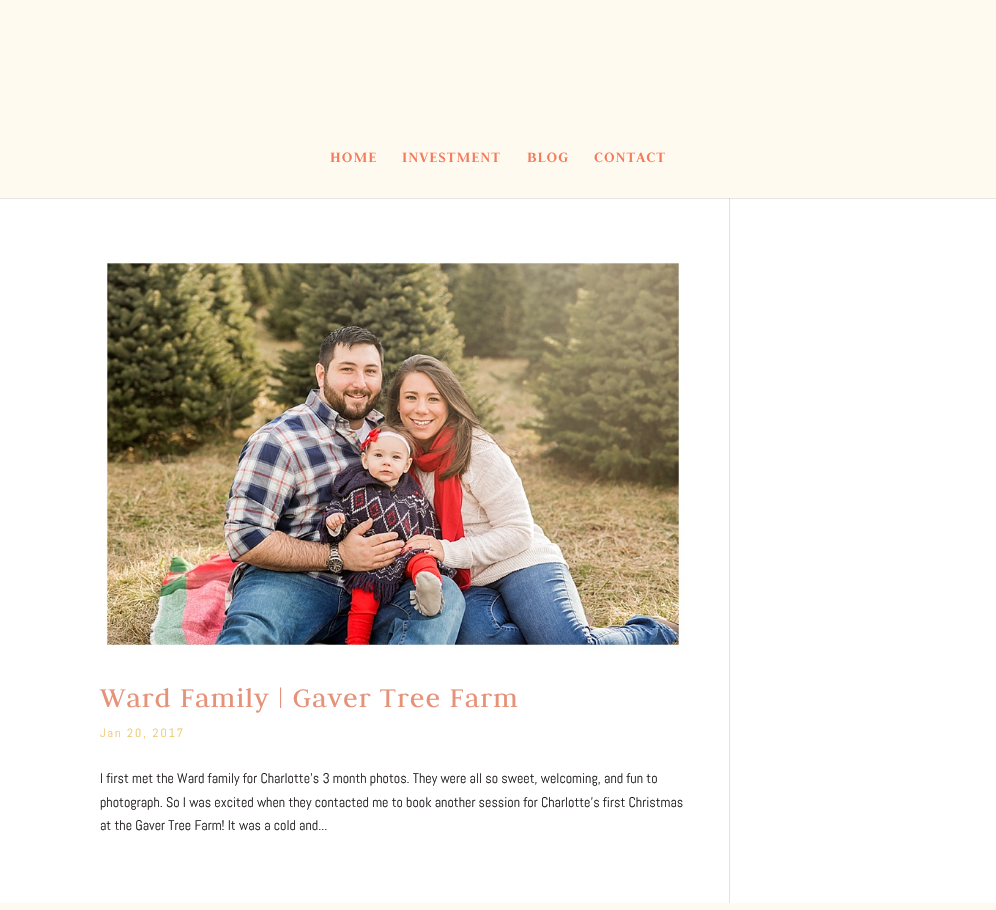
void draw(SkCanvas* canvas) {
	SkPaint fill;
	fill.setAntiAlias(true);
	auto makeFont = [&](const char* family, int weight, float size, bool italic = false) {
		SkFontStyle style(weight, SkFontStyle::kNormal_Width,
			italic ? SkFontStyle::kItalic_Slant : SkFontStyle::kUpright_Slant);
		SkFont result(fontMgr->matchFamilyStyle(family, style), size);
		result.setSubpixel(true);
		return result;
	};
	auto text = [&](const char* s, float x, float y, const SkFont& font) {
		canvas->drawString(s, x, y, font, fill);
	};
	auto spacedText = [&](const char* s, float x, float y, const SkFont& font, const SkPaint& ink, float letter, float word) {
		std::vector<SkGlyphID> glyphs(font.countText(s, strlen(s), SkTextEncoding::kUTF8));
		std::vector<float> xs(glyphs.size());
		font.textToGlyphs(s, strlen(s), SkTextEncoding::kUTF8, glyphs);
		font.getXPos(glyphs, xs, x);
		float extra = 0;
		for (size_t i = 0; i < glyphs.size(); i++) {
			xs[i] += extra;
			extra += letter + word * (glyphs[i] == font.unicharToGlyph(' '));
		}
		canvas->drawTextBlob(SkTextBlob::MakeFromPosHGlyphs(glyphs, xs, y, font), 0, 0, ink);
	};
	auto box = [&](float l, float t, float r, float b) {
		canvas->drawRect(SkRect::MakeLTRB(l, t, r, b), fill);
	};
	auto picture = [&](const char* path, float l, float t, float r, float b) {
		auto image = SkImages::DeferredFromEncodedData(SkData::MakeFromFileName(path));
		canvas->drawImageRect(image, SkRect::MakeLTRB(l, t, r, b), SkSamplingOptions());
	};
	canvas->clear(0xFFFFFFFF);
	fill.setColor(0xFFE6E6E6);
	box(0, 198, 996, 199);
	fill.setColor(0xFFFFFAF0);
	box(0, 0, 996, 198);
	picture("image0.png", 103, 256, 686, 652);
	fill.setColor(0xFFE2E2E2);
	box(729, 198, 730, 903);
	fill.setColor(0xFFCBCBCB);
	box(729, 198, 730, 199);
	fill.setColor(0xFFFFFAF0);
	box(0, 903, 996, 910);
	auto font1 = makeFont("Judson", 700, 16);
	fill.setColor(0xFFF37B5C);
	spacedText("HOME", 330, 162, font1, fill, 1, 0);
	spacedText("INVESTMENT", 402, 162, font1, fill, 1, 0);
	spacedText("BLOG", 527, 162, font1, fill, 1, 0);
	spacedText("CONTACT", 594, 162, font1, fill, 1, 0);
	auto font2 = makeFont("Judson", 400, 30);
	fill.setColor(0xFFE59279);
	spacedText("Ward Family | Gaver Tree Farm", 100, 707, font2, fill, 1, 0);
	auto font3 = makeFont("Abel", 400, 12);
	fill.setColor(0xFFEDC96D);
	spacedText("Jan 20, 2017", 100, 737, font3, fill, 2, 0);
	auto font4 = makeFont("Abel", 400, 14);
	fill.setColor(0xFF231F20);
	text("I first met the Ward family for Charlotte’s 3 month photos. They were all so sweet, welcoming, and fun to", 100, 783, font4);
	text("photograph. So I was excited when they contacted me to book another session for Charlotte’s first Christmas", 100, 807, font4);
	text("at the Gaver Tree Farm! It was a cold and...", 100, 830, font4);
}
